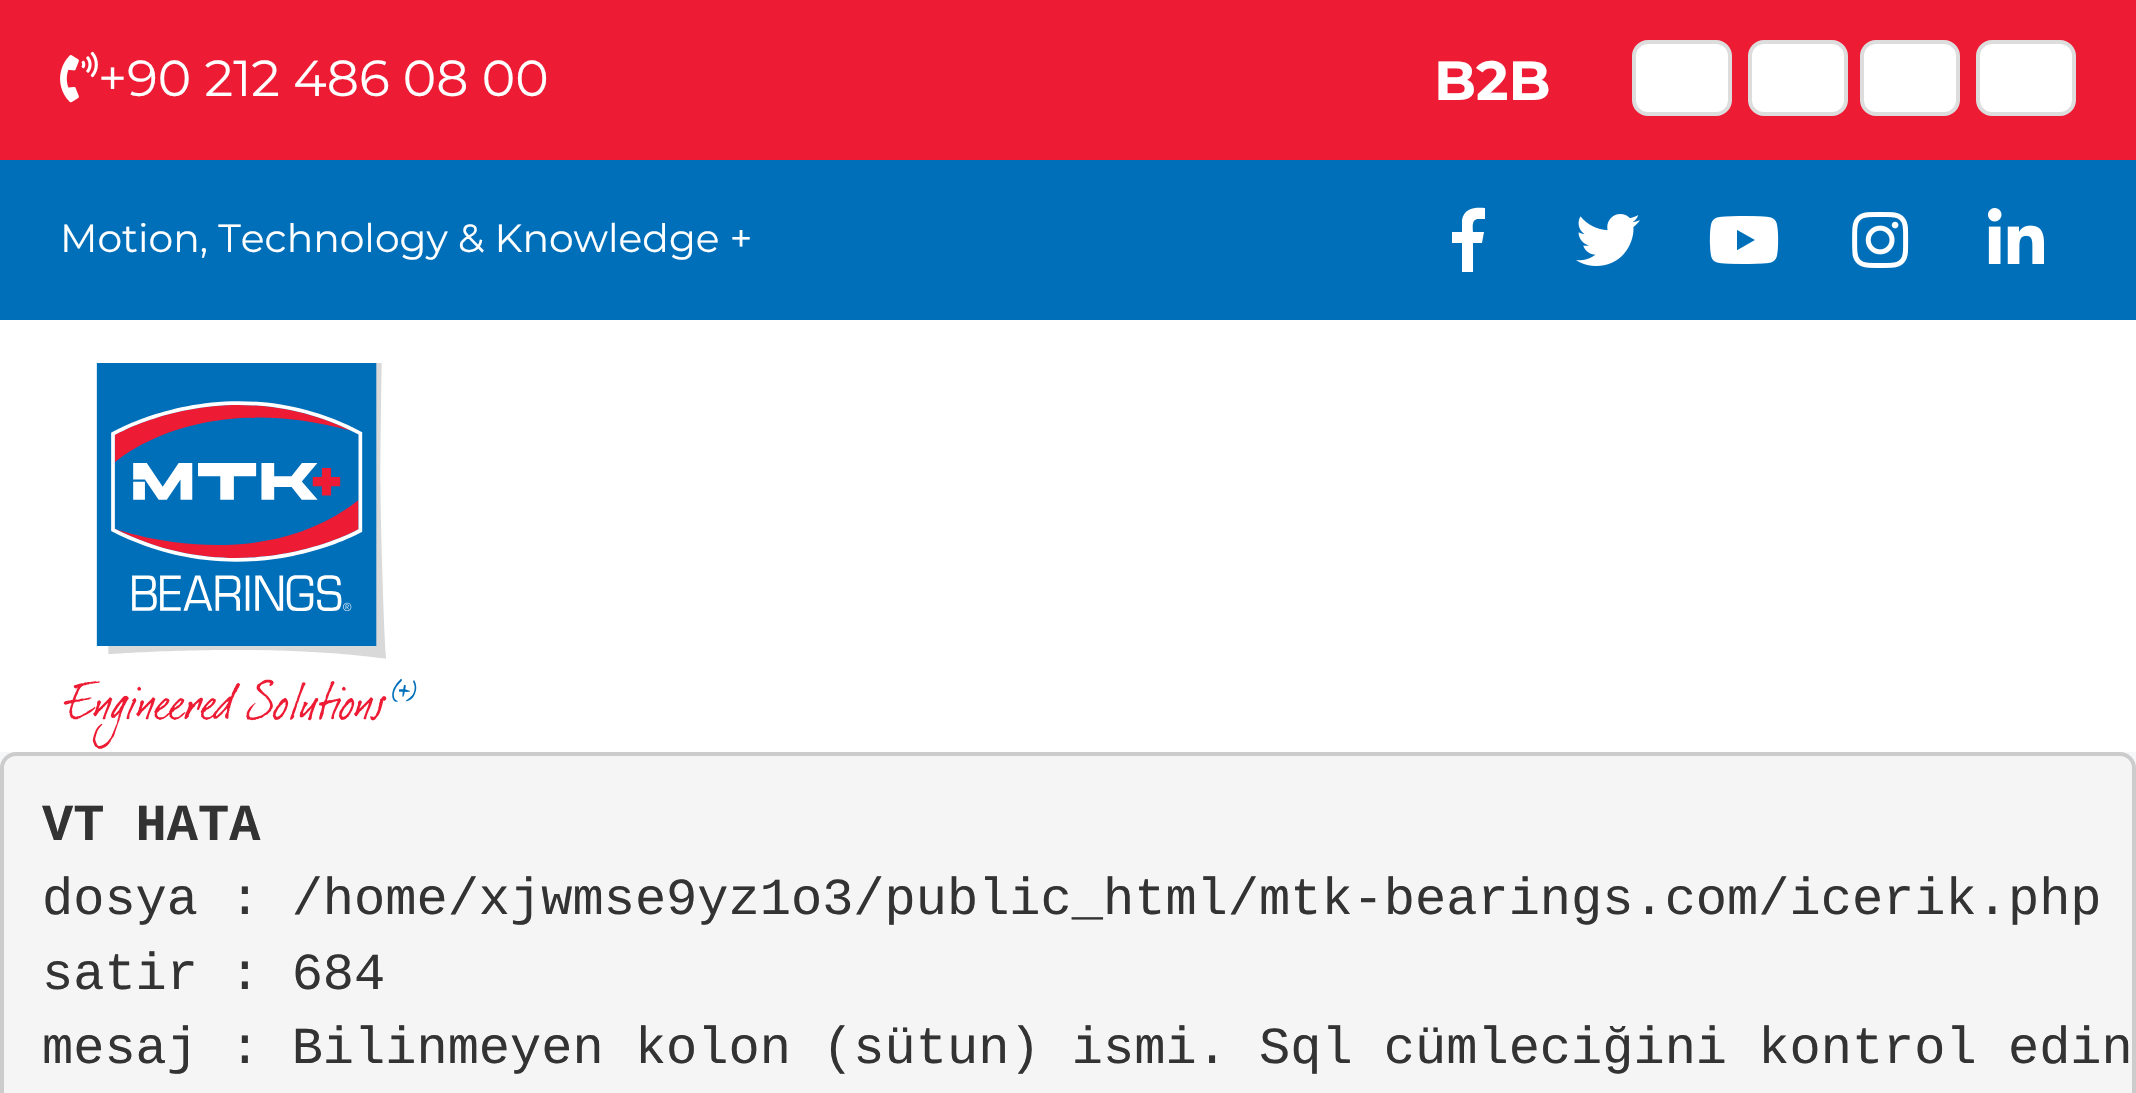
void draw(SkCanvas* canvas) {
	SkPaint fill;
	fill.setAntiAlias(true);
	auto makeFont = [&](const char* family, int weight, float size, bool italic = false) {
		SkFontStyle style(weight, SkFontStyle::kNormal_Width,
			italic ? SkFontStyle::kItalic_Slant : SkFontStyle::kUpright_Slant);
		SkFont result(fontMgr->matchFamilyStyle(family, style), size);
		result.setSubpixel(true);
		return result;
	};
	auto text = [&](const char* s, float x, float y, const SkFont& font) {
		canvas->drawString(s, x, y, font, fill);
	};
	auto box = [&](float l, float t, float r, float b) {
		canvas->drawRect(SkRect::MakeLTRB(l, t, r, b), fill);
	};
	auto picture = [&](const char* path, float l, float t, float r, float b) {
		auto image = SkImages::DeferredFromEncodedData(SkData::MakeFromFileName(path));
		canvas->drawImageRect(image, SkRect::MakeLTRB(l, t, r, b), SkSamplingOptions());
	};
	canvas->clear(0xFFF6F7F9);
	fill.setColor(0xFFFFFFFF);
	box(0, 320, 2136, 752);
	fill.setColor(0xFFED1B34);
	box(0, 0, 2136, 160);
	picture("image0.png", 60, 51, 98, 103);
	fill.setColor(0xFFFFFFFF);
	canvas->drawRoundRect(SkRect::MakeLTRB(1634, 42, 1730, 114), 14, 14, fill);
	fill.setStyle(SkPaint::kStroke_Style);
	fill.setStrokeWidth(4);
	fill.setColor(0xFFDDDDDD);
	canvas->drawRoundRect(SkRect::MakeLTRB(1634, 42, 1730, 114), 14, 14, fill);
	fill.setStyle(SkPaint::kFill_Style);
	fill.setColor(0xFFFFFFFF);
	canvas->drawRoundRect(SkRect::MakeLTRB(1750, 42, 1846, 114), 14, 14, fill);
	fill.setStyle(SkPaint::kStroke_Style);
	fill.setColor(0xFFDDDDDD);
	canvas->drawRoundRect(SkRect::MakeLTRB(1750, 42, 1846, 114), 14, 14, fill);
	fill.setStyle(SkPaint::kFill_Style);
	fill.setColor(0xFFFFFFFF);
	canvas->drawRoundRect(SkRect::MakeLTRB(1862, 42, 1958, 114), 14, 14, fill);
	fill.setStyle(SkPaint::kStroke_Style);
	fill.setColor(0xFFDDDDDD);
	canvas->drawRoundRect(SkRect::MakeLTRB(1862, 42, 1958, 114), 14, 14, fill);
	fill.setStyle(SkPaint::kFill_Style);
	fill.setColor(0xFFFFFFFF);
	canvas->drawRoundRect(SkRect::MakeLTRB(1978, 42, 2074, 114), 14, 14, fill);
	fill.setStyle(SkPaint::kStroke_Style);
	fill.setColor(0xFFDDDDDD);
	canvas->drawRoundRect(SkRect::MakeLTRB(1978, 42, 2074, 114), 14, 14, fill);
	fill.setStyle(SkPaint::kFill_Style);
	fill.setColor(0xFF006FBA);
	box(0, 160, 2136, 320);
	fill.setColor(0xFFFFFFFF);
	canvas->drawPath(SkPathBuilder().moveTo(1479, 219).cubicTo(1471, 219, 1473, 227, 1473, 232).lineTo(1484, 232).lineTo(1482, 243).lineTo(1473, 243).lineTo(1473, 272).lineTo(1462, 272).lineTo(1462, 243).lineTo(1452, 243).lineTo(1452, 232).lineTo(1462, 232).lineTo(1462, 220).cubicTo(1464, 208, 1475, 207, 1485, 208).lineTo(1485, 219).close().detach(), fill);
	picture("image1.png", 1576, 214, 1640, 266);
	picture("image2.png", 1709, 216, 1779, 264);
	picture("image3.png", 1852, 212, 1909, 268);
	picture("image4.png", 1988, 208, 2044, 264);
	picture("image5.png", 63, 363, 417, 749);
	fill.setColor(0xFFF5F5F5);
	canvas->drawRoundRect(SkRect::MakeLTRB(2, 754, 2134, 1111), 14, 14, fill);
	fill.setStyle(SkPaint::kStroke_Style);
	fill.setColor(0xFFCCCCCC);
	canvas->drawRoundRect(SkRect::MakeLTRB(2, 754, 2134, 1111), 14, 14, fill);
	auto font1 = makeFont("Montserrat", 400, 50.5f);
	fill.setStyle(SkPaint::kFill_Style);
	fill.setColor(0xFFFFFFFF);
	text("+90 212 486 08 00", 98, 96, font1);
	auto font2 = makeFont("Montserrat", 700, 55);
	text("B2B", 1434, 100, font2);
	auto font3 = makeFont("Montserrat", 400, 39.25f);
	text("Motion, Technology & Knowledge +", 60, 252, font3);
	auto font4 = makeFont("Liberation Mono", 700, 52);
	fill.setColor(0xFF333333);
	text("VT HATA", 42, 840, font4);
	auto font5 = makeFont("Liberation Mono", 400, 52);
	text("dosya : /home/xjwmse9yz1o3/public_html/mtk-bearings.com/icerik.php", 42, 914, font5);
	text("satir : 684", 42, 989, font5);
	text("mesaj : Bilinmeyen kolon (sütun) ismi. Sql cümleciğini kontrol edin", 42, 1063, font5);
}
